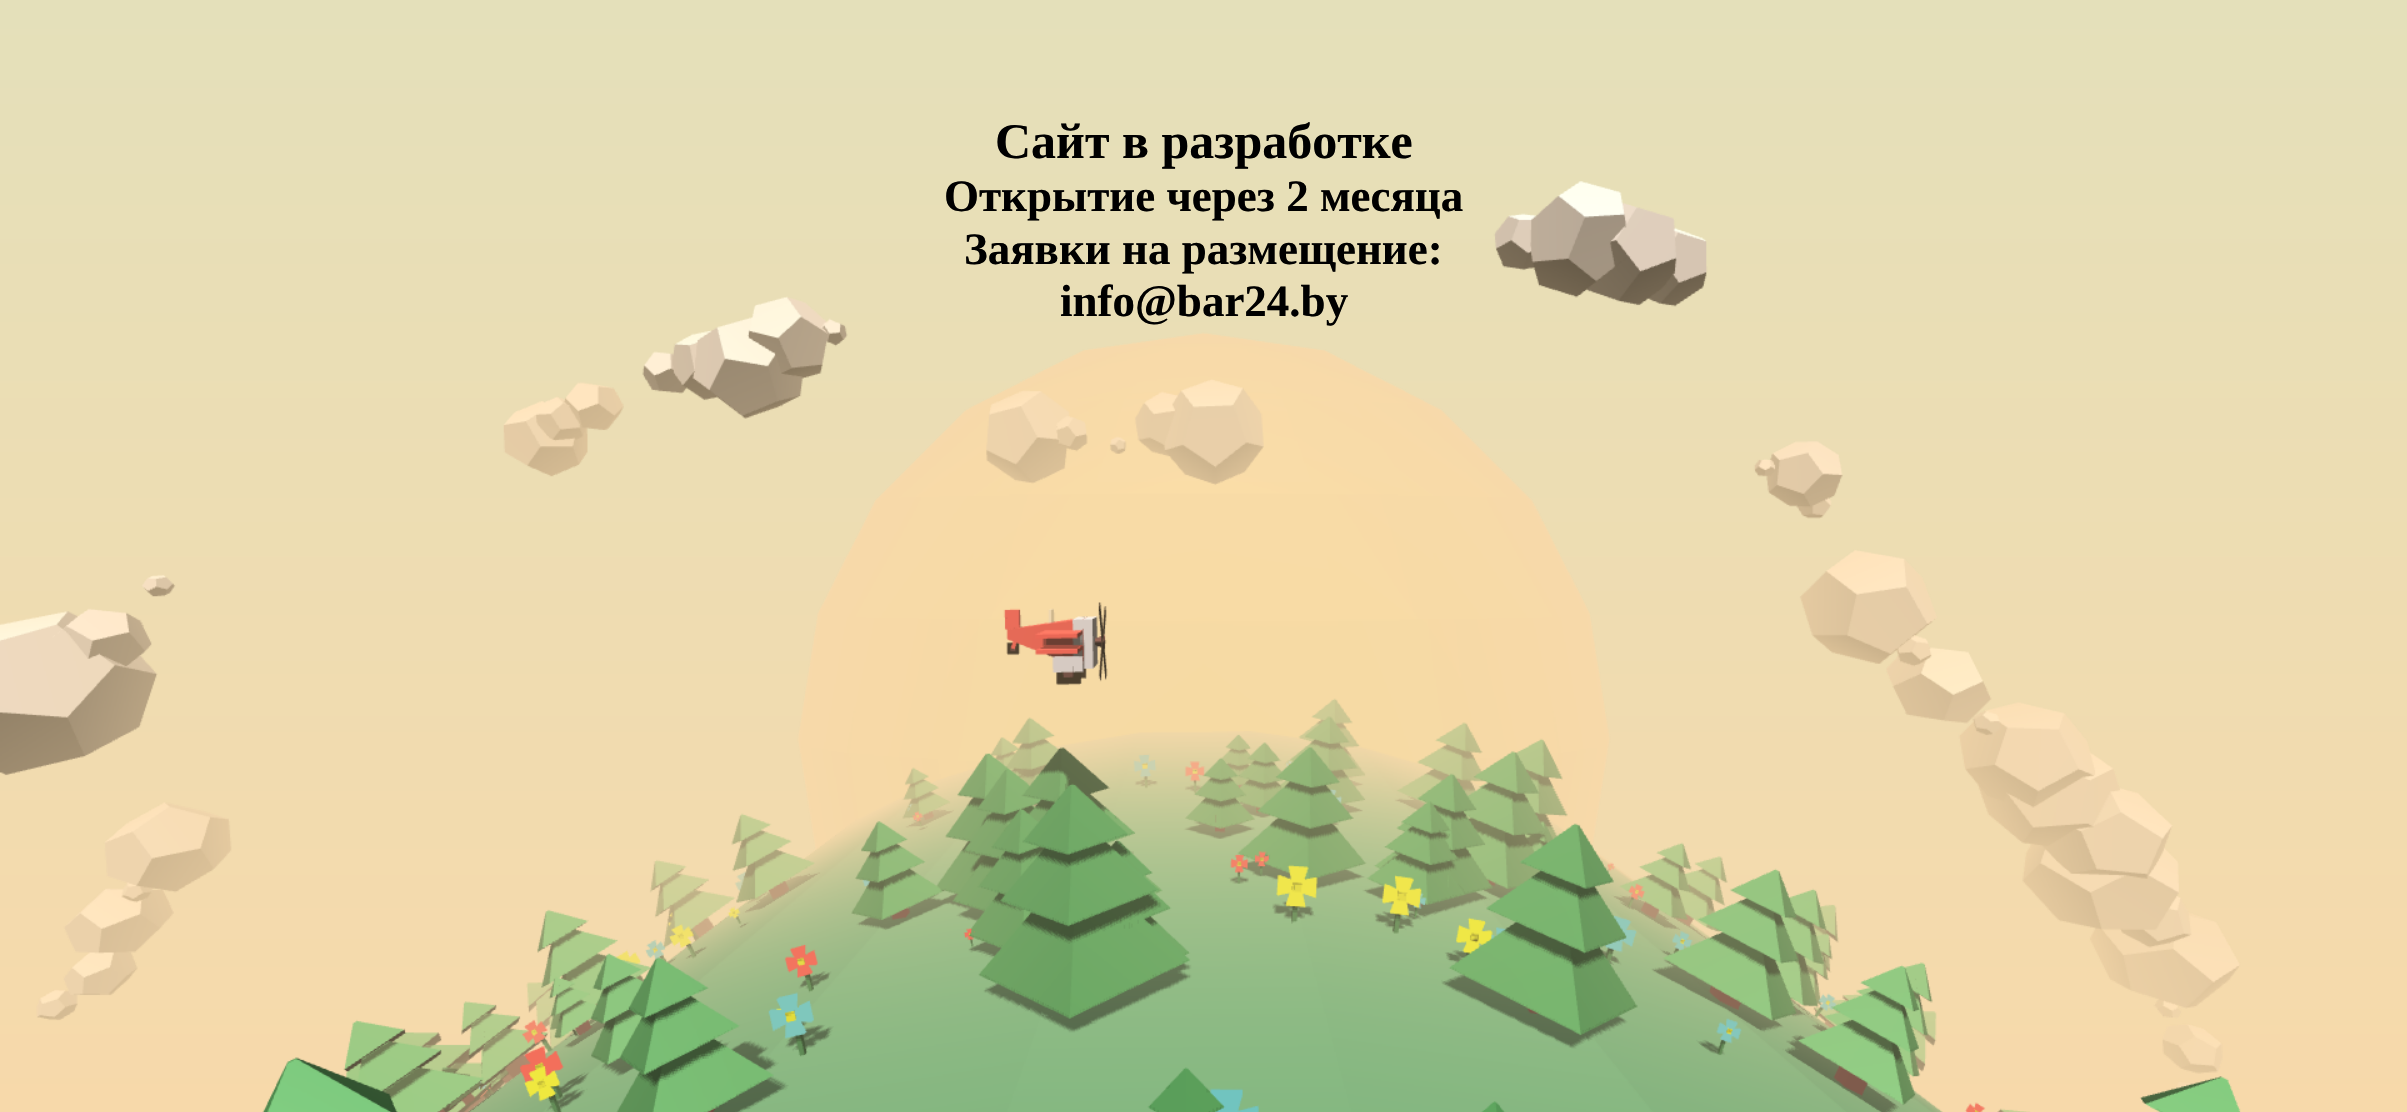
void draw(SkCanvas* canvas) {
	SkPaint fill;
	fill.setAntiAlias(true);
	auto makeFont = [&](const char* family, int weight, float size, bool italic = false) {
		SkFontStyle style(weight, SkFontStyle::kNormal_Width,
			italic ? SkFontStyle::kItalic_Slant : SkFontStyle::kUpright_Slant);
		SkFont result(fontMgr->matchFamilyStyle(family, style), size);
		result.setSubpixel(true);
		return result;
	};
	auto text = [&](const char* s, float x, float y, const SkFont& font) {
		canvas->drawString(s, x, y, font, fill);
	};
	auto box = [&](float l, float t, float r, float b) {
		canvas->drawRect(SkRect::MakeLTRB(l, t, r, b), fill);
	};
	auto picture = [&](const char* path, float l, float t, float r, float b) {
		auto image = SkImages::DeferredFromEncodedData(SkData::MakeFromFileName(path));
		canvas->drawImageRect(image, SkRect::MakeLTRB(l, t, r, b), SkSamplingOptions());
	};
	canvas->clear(0xFFFFFFFF);
	{
		const SkColor colors[] = {0xFFE4E0BA, 0xFFF7D9AA};
		const float stops[] = {0, 1};
		const SkPoint ends[] = {{1204, 0}, {1204, 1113}};
		fill.setShader(SkGradientShader::MakeLinear(ends, colors, stops, 2, SkTileMode::kClamp));
		fill.setAlpha(255);
	}
	box(0, 0, 2407, 1112);
	picture("image0.png", 0, 181, 2241, 1112);
	auto font1 = makeFont("Liberation Serif", 700, 50);
	fill.setShader(nullptr);
	fill.setColor(0xFF000000);
	text("Сайт в разработке", 995, 158, font1);
	auto font2 = makeFont("Liberation Serif", 700, 45);
	text("Открытие через 2 месяца", 944, 211, font2);
	text("Заявки на размещение:", 964, 264, font2);
	text("info@bar24.by", 1060, 316, font2);
}
